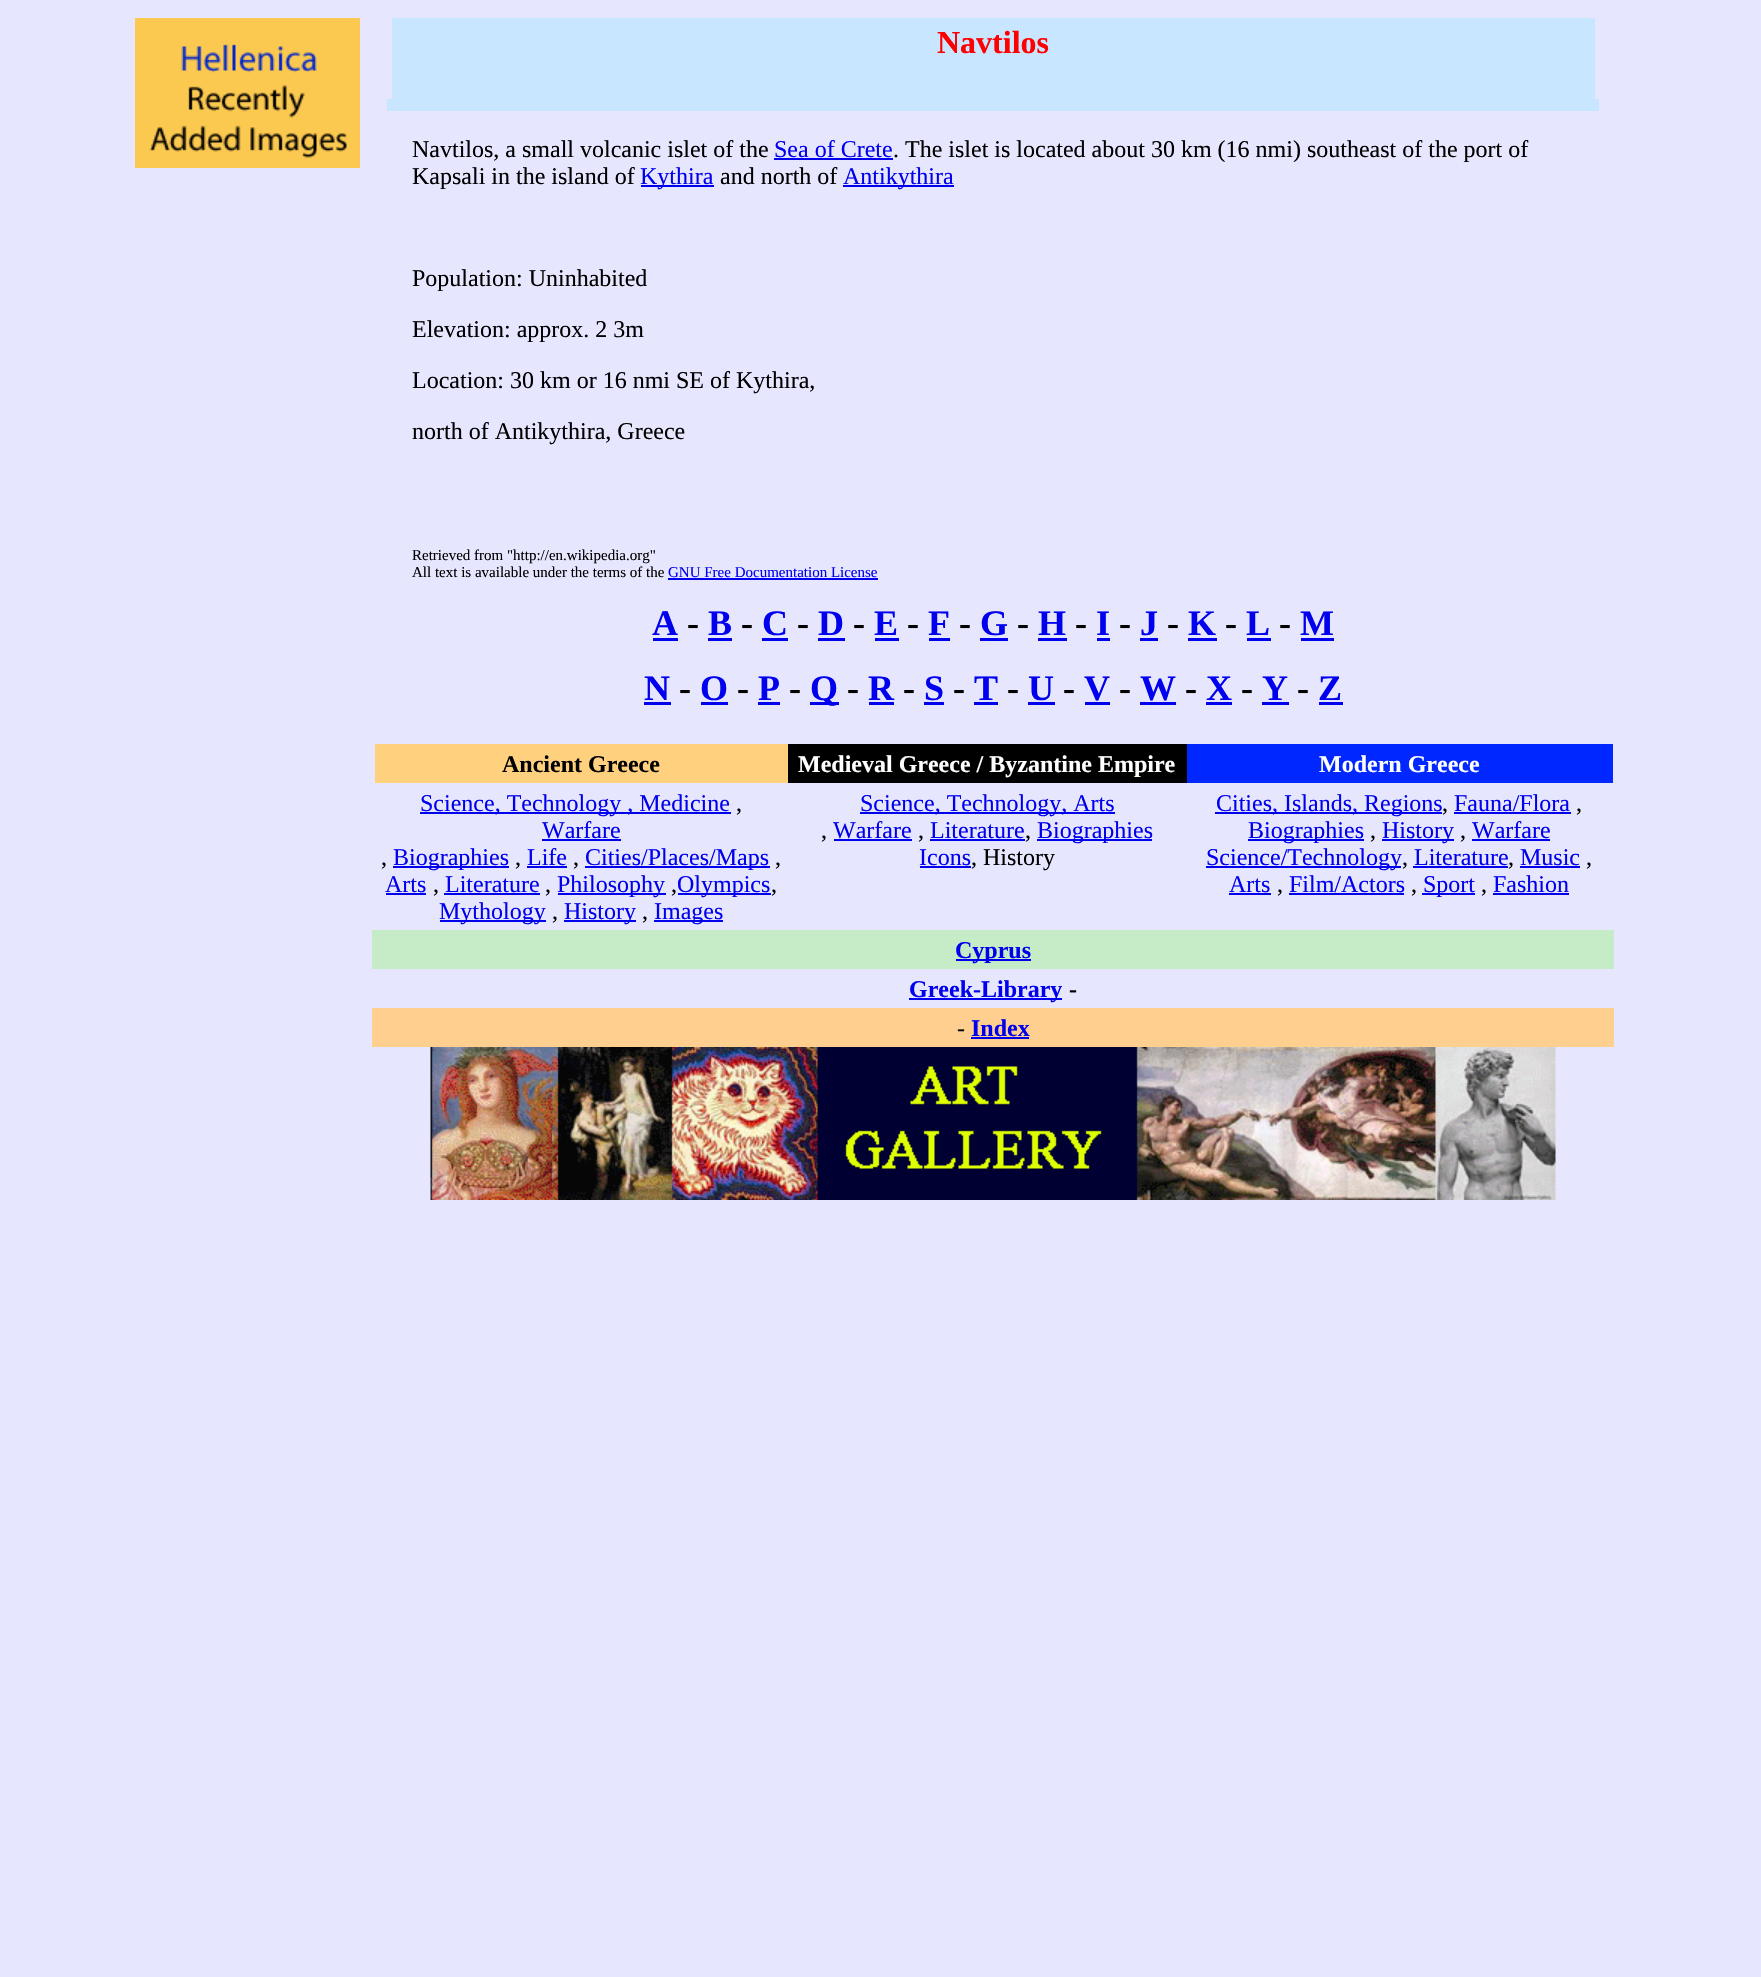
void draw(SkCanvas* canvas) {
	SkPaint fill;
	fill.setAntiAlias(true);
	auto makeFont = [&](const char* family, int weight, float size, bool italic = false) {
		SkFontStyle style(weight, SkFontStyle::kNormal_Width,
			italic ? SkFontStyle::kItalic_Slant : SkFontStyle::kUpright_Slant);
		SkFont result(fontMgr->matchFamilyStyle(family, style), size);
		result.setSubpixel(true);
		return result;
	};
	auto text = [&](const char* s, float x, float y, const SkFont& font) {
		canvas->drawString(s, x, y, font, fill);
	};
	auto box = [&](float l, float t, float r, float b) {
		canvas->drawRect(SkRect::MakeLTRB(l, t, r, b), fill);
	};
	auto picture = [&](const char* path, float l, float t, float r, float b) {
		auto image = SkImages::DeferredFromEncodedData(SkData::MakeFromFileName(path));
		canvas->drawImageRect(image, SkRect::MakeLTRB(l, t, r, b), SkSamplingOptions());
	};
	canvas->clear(0xFFE6E6FF);
	picture("image0.png", 135, 18, 360, 168);
	fill.setColor(0xFFC8E6FF);
	box(392, 18, 1595, 99);
	box(387, 99, 1599, 111);
	fill.setColor(0xFF0000EE);
	box(774, 158, 893, 160);
	box(641, 185, 714, 187);
	box(843, 185, 954, 187);
	box(668, 578, 878, 580);
	box(653, 638, 678, 641);
	box(708, 638, 732, 641);
	box(762, 638, 788, 641);
	box(818, 638, 845, 641);
	box(875, 638, 899, 641);
	box(929, 638, 950, 641);
	box(980, 638, 1008, 641);
	box(1038, 638, 1067, 641);
	box(1097, 638, 1110, 641);
	box(1140, 638, 1158, 641);
	box(1188, 638, 1217, 641);
	box(1247, 638, 1271, 641);
	box(1301, 638, 1334, 641);
	box(644, 702, 671, 705);
	box(701, 702, 728, 705);
	box(758, 702, 780, 705);
	box(810, 702, 839, 705);
	box(869, 702, 894, 705);
	box(924, 702, 944, 705);
	box(974, 702, 998, 705);
	box(1028, 702, 1055, 705);
	box(1085, 702, 1110, 705);
	box(1140, 702, 1176, 705);
	box(1206, 702, 1232, 705);
	box(1262, 702, 1289, 705);
	box(1319, 702, 1343, 705);
	fill.setColor(0xFFFFD07D);
	box(375, 744, 788, 783);
	fill.setColor(0xFF000000);
	box(788, 744, 1187, 783);
	fill.setColor(0xFF0027FF);
	box(1187, 744, 1613, 783);
	fill.setColor(0xFF0000EE);
	box(420, 812, 731, 814);
	box(542, 839, 621, 841);
	box(393, 866, 509, 868);
	box(527, 866, 567, 868);
	box(585, 866, 770, 868);
	box(386, 893, 426, 895);
	box(444, 893, 540, 895);
	box(558, 893, 666, 895);
	box(678, 893, 771, 895);
	box(440, 920, 546, 922);
	box(564, 920, 636, 922);
	box(654, 920, 723, 922);
	box(860, 812, 1115, 814);
	box(834, 839, 912, 841);
	box(930, 839, 1025, 841);
	box(1037, 839, 1152, 841);
	box(920, 866, 971, 868);
	box(1215, 812, 1442, 814);
	box(1454, 812, 1571, 814);
	box(1248, 839, 1364, 841);
	box(1382, 839, 1454, 841);
	box(1472, 839, 1550, 841);
	box(1206, 866, 1401, 868);
	box(1413, 866, 1508, 868);
	box(1520, 866, 1580, 868);
	box(1229, 893, 1271, 895);
	box(1289, 893, 1404, 895);
	box(1422, 893, 1475, 895);
	box(1493, 893, 1569, 895);
	fill.setColor(0xFFC5ECC6);
	box(372, 930, 1614, 969);
	fill.setColor(0xFF0000EE);
	box(956, 959, 1031, 961);
	box(909, 998, 1062, 1000);
	fill.setColor(0xFFFFCF8F);
	box(372, 1008, 1614, 1047);
	fill.setColor(0xFF0000EE);
	box(971, 1037, 1029, 1039);
	picture("image1.png", 430, 1047, 1556, 1200);
	auto font1 = makeFont("Liberation Serif", 700, 32);
	fill.setColor(0xFFFF0000);
	text("Navtilos", 937, 53, font1);
	auto font2 = makeFont("Liberation Serif", 400, 24);
	fill.setColor(0xFF000000);
	text("Navtilos, a small volcanic islet of the", 412, 157, font2);
	fill.setColor(0xFF0000EE);
	text("Sea of Crete", 774, 157, font2);
	fill.setColor(0xFF000000);
	text(". The islet is located about 30 km (16 nmi) southeast of the port of", 893, 157, font2);
	text("Kapsali in the island of", 412, 184, font2);
	fill.setColor(0xFF0000EE);
	text("Kythira", 640, 184, font2);
	fill.setColor(0xFF000000);
	text("and north of", 720, 184, font2);
	fill.setColor(0xFF0000EE);
	text("Antikythira", 843, 184, font2);
	fill.setColor(0xFF000000);
	text("Population: Uninhabited", 412, 286, font2);
	text("Elevation: approx. 2 3m", 412, 337, font2);
	text("Location: 30 km or 16 nmi SE of Kythira,", 412, 388, font2);
	text("north of Antikythira, Greece", 412, 439, font2);
	auto font3 = makeFont("Liberation Serif", 400, 15);
	text("Retrieved from \"http://en.wikipedia.org\"", 412, 560, font3);
	text("All text is available under the terms of the", 412, 577, font3);
	fill.setColor(0xFF0000EE);
	text("GNU Free Documentation License", 668, 577, font3);
	auto font4 = makeFont("Liberation Serif", 700, 36);
	text("A", 652, 635, font4);
	fill.setColor(0xFF000000);
	text("-", 687, 635, font4);
	fill.setColor(0xFF0000EE);
	text("B", 708, 635, font4);
	fill.setColor(0xFF000000);
	text("-", 741, 635, font4);
	fill.setColor(0xFF0000EE);
	text("C", 762, 635, font4);
	fill.setColor(0xFF000000);
	text("-", 797, 635, font4);
	fill.setColor(0xFF0000EE);
	text("D", 818, 635, font4);
	fill.setColor(0xFF000000);
	text("-", 853, 635, font4);
	fill.setColor(0xFF0000EE);
	text("E", 874, 635, font4);
	fill.setColor(0xFF000000);
	text("-", 907, 635, font4);
	fill.setColor(0xFF0000EE);
	text("F", 928, 635, font4);
	fill.setColor(0xFF000000);
	text("-", 959, 635, font4);
	fill.setColor(0xFF0000EE);
	text("G", 980, 635, font4);
	fill.setColor(0xFF000000);
	text("-", 1017, 635, font4);
	fill.setColor(0xFF0000EE);
	text("H", 1038, 635, font4);
	fill.setColor(0xFF000000);
	text("-", 1075, 635, font4);
	fill.setColor(0xFF0000EE);
	text("I", 1096, 635, font4);
	fill.setColor(0xFF000000);
	text("-", 1119, 635, font4);
	fill.setColor(0xFF0000EE);
	text("J", 1140, 635, font4);
	fill.setColor(0xFF000000);
	text("-", 1167, 635, font4);
	fill.setColor(0xFF0000EE);
	text("K", 1188, 635, font4);
	fill.setColor(0xFF000000);
	text("-", 1225, 635, font4);
	fill.setColor(0xFF0000EE);
	text("L", 1246, 635, font4);
	fill.setColor(0xFF000000);
	text("-", 1279, 635, font4);
	fill.setColor(0xFF0000EE);
	text("M", 1300, 635, font4);
	text("N", 644, 700, font4);
	fill.setColor(0xFF000000);
	text("-", 679, 700, font4);
	fill.setColor(0xFF0000EE);
	text("O", 700, 700, font4);
	fill.setColor(0xFF000000);
	text("-", 737, 700, font4);
	fill.setColor(0xFF0000EE);
	text("P", 758, 700, font4);
	fill.setColor(0xFF000000);
	text("-", 789, 700, font4);
	fill.setColor(0xFF0000EE);
	text("Q", 810, 700, font4);
	fill.setColor(0xFF000000);
	text("-", 847, 700, font4);
	fill.setColor(0xFF0000EE);
	text("R", 868, 700, font4);
	fill.setColor(0xFF000000);
	text("-", 903, 700, font4);
	fill.setColor(0xFF0000EE);
	text("S", 924, 700, font4);
	fill.setColor(0xFF000000);
	text("-", 953, 700, font4);
	fill.setColor(0xFF0000EE);
	text("T", 974, 700, font4);
	fill.setColor(0xFF000000);
	text("-", 1007, 700, font4);
	fill.setColor(0xFF0000EE);
	text("U", 1028, 700, font4);
	fill.setColor(0xFF000000);
	text("-", 1063, 700, font4);
	fill.setColor(0xFF0000EE);
	text("V", 1084, 700, font4);
	fill.setColor(0xFF000000);
	text("-", 1119, 700, font4);
	fill.setColor(0xFF0000EE);
	text("W", 1140, 700, font4);
	fill.setColor(0xFF000000);
	text("-", 1185, 700, font4);
	fill.setColor(0xFF0000EE);
	text("X", 1206, 700, font4);
	fill.setColor(0xFF000000);
	text("-", 1241, 700, font4);
	fill.setColor(0xFF0000EE);
	text("Y", 1262, 700, font4);
	fill.setColor(0xFF000000);
	text("-", 1297, 700, font4);
	fill.setColor(0xFF0000EE);
	text("Z", 1318, 700, font4);
	auto font5 = makeFont("Liberation Serif", 700, 24);
	fill.setColor(0xFF000000);
	text("Ancient Greece", 502, 772, font5);
	fill.setColor(0xFFFFFFFF);
	text("Medieval Greece / Byzantine Empire", 798, 772, font5);
	text("Modern Greece", 1319, 772, font5);
	fill.setColor(0xFF0000EE);
	text("Science, Technology , Medicine", 420, 811, font2);
	fill.setColor(0xFF000000);
	text(",", 736, 811, font2);
	fill.setColor(0xFF0000EE);
	text("Warfare", 542, 838, font2);
	fill.setColor(0xFF000000);
	text(",", 381, 865, font2);
	fill.setColor(0xFF0000EE);
	text("Biographies", 393, 865, font2);
	fill.setColor(0xFF000000);
	text(",", 515, 865, font2);
	fill.setColor(0xFF0000EE);
	text("Life", 527, 865, font2);
	fill.setColor(0xFF000000);
	text(",", 573, 865, font2);
	fill.setColor(0xFF0000EE);
	text("Cities/Places/Maps", 585, 865, font2);
	fill.setColor(0xFF000000);
	text(",", 775, 865, font2);
	fill.setColor(0xFF0000EE);
	text("Arts", 385, 892, font2);
	fill.setColor(0xFF000000);
	text(",", 433, 892, font2);
	fill.setColor(0xFF0000EE);
	text("Literature", 445, 892, font2);
	fill.setColor(0xFF000000);
	text(",", 545, 892, font2);
	fill.setColor(0xFF0000EE);
	text("Philosophy", 557, 892, font2);
	fill.setColor(0xFF000000);
	text(",", 671, 892, font2);
	fill.setColor(0xFF0000EE);
	text("Olympics", 677, 892, font2);
	fill.setColor(0xFF000000);
	text(",", 771, 892, font2);
	fill.setColor(0xFF0000EE);
	text("Mythology", 439, 919, font2);
	fill.setColor(0xFF000000);
	text(",", 552, 919, font2);
	fill.setColor(0xFF0000EE);
	text("History", 564, 919, font2);
	fill.setColor(0xFF000000);
	text(",", 642, 919, font2);
	fill.setColor(0xFF0000EE);
	text("Images", 654, 919, font2);
	text("Science, Technology, Arts", 860, 811, font2);
	fill.setColor(0xFF000000);
	text(",", 821, 838, font2);
	fill.setColor(0xFF0000EE);
	text("Warfare", 833, 838, font2);
	fill.setColor(0xFF000000);
	text(",", 918, 838, font2);
	fill.setColor(0xFF0000EE);
	text("Literature", 930, 838, font2);
	fill.setColor(0xFF000000);
	text(",", 1025, 838, font2);
	fill.setColor(0xFF0000EE);
	text("Biographies", 1037, 838, font2);
	text("Icons", 919, 865, font2);
	fill.setColor(0xFF000000);
	text(", History", 971, 865, font2);
	fill.setColor(0xFF0000EE);
	text("Cities, Islands, Regions", 1216, 811, font2);
	fill.setColor(0xFF000000);
	text(",", 1442, 811, font2);
	fill.setColor(0xFF0000EE);
	text("Fauna/Flora", 1454, 811, font2);
	fill.setColor(0xFF000000);
	text(",", 1576, 811, font2);
	fill.setColor(0xFF0000EE);
	text("Biographies", 1248, 838, font2);
	fill.setColor(0xFF000000);
	text(",", 1370, 838, font2);
	fill.setColor(0xFF0000EE);
	text("History", 1382, 838, font2);
	fill.setColor(0xFF000000);
	text(",", 1460, 838, font2);
	fill.setColor(0xFF0000EE);
	text("Warfare", 1472, 838, font2);
	text("Science/Technology", 1206, 865, font2);
	fill.setColor(0xFF000000);
	text(",", 1402, 865, font2);
	fill.setColor(0xFF0000EE);
	text("Literature", 1414, 865, font2);
	fill.setColor(0xFF000000);
	text(",", 1508, 865, font2);
	fill.setColor(0xFF0000EE);
	text("Music", 1520, 865, font2);
	fill.setColor(0xFF000000);
	text(",", 1586, 865, font2);
	fill.setColor(0xFF0000EE);
	text("Arts", 1229, 892, font2);
	fill.setColor(0xFF000000);
	text(",", 1277, 892, font2);
	fill.setColor(0xFF0000EE);
	text("Film/Actors", 1289, 892, font2);
	fill.setColor(0xFF000000);
	text(",", 1411, 892, font2);
	fill.setColor(0xFF0000EE);
	text("Sport", 1423, 892, font2);
	fill.setColor(0xFF000000);
	text(",", 1481, 892, font2);
	fill.setColor(0xFF0000EE);
	text("Fashion", 1493, 892, font2);
	text("Cyprus", 955, 958, font5);
	text("Greek-Library", 909, 997, font5);
	fill.setColor(0xFF000000);
	text("-", 1069, 997, font5);
	text("-", 957, 1036, font2);
	fill.setColor(0xFF0000EE);
	text("Index", 971, 1036, font5);
}
